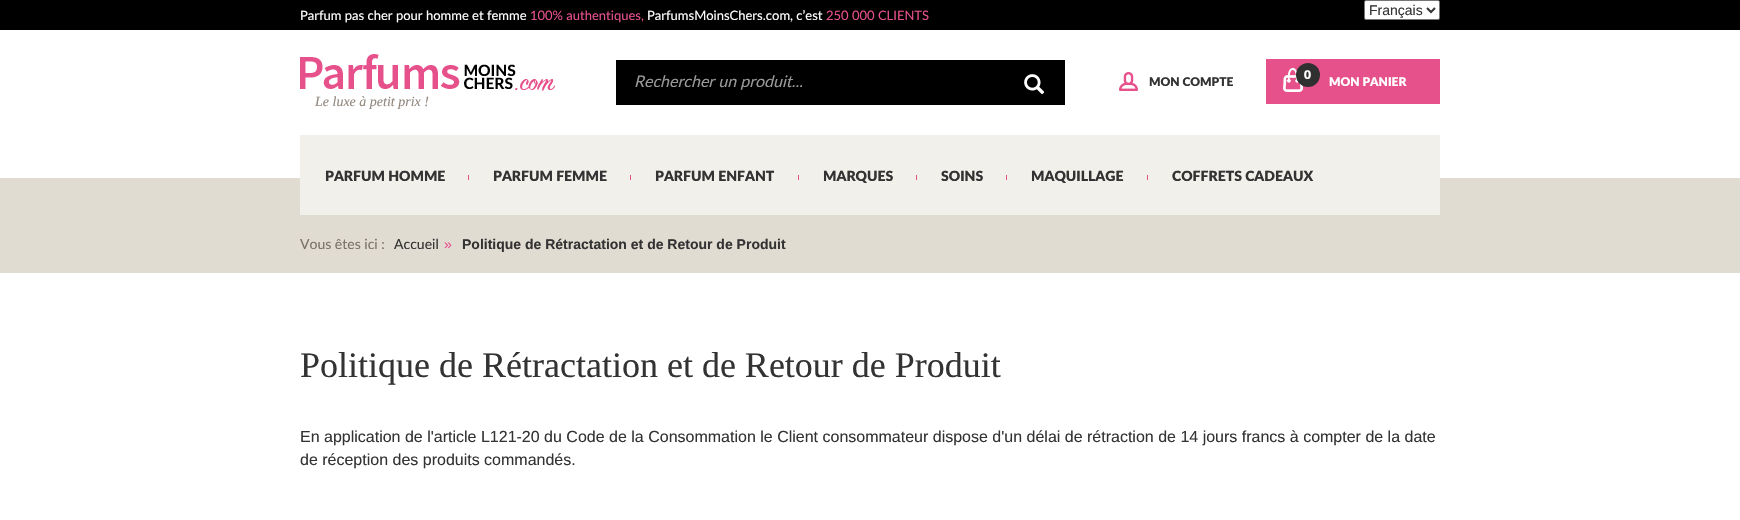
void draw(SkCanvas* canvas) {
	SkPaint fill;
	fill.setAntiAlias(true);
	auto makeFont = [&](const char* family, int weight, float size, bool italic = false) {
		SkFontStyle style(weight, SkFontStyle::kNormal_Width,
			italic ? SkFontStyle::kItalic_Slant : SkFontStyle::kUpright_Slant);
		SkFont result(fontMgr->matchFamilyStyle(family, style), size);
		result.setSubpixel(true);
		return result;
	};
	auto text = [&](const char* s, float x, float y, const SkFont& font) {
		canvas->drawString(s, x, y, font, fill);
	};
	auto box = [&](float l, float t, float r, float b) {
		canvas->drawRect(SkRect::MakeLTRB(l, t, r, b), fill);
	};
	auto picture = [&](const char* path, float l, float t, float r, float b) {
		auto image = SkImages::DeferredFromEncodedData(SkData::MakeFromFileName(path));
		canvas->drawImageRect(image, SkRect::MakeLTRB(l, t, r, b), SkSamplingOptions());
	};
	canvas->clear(0xFFFFFFFF);
	fill.setColor(0xFF000000);
	box(0, 0, 1740, 30);
	fill.setColor(0xFFFFFFFF);
	canvas->drawRoundRect(SkRect::MakeLTRB(1364.5f, 0.5f, 1439.5f, 19.5f), 1.5f, 1.5f, fill);
	fill.setStyle(SkPaint::kStroke_Style);
	fill.setStrokeWidth(1);
	fill.setColor(0xFF767676);
	canvas->drawRoundRect(SkRect::MakeLTRB(1364.5f, 0.5f, 1439.5f, 19.5f), 1.5f, 1.5f, fill);
	fill.setStrokeWidth(2);
	fill.setColor(0xFF333333);
	canvas->drawPath(SkPathBuilder().moveTo(1427, 8).lineTo(1431, 12).lineTo(1435, 8).detach(), fill);
	fill.setStyle(SkPaint::kFill_Style);
	fill.setColor(0xFF000000);
	box(616, 60, 1065, 105);
	picture("image0.png", 1024, 74, 1045, 95);
	picture("image1.png", 1119, 72, 1138, 91);
	fill.setColor(0xFFE6518B);
	box(1266, 59, 1440, 104);
	picture("image2.png", 1283, 68, 1303, 92);
	fill.setColor(0xFF303030);
	canvas->drawCircle(1308, 75, 12, fill);
	picture("image3.png", 300, 54, 555, 91);
	fill.setColor(0xFFE1DCD2);
	box(0, 178, 1740, 273);
	fill.setColor(0xFFF2F0EA);
	box(300, 135, 1440, 215);
	fill.setColor(0xFFE6518B);
	box(468, 175, 469, 180);
	box(630, 175, 631, 180);
	box(798, 175, 799, 180);
	box(916, 175, 917, 180);
	box(1006, 175, 1007, 180);
	box(1147, 175, 1148, 180);
	auto font1 = makeFont("Lato", 400, 13);
	fill.setColor(0xFFFFFFFF);
	text("Parfum pas cher pour homme et femme", 300, 20, font1);
	fill.setColor(0xFFE6518B);
	text("100% authentiques,", 530, 20, font1);
	fill.setColor(0xFFFFFFFF);
	text("ParfumsMoinsChers.com, c’est", 647, 20, font1);
	fill.setColor(0xFFE6518B);
	text("250 000 CLIENTS", 826, 20, font1);
	auto font2 = makeFont("Liberation Sans", 400, 14);
	fill.setColor(0xFF333333);
	text("Français", 1369, 15, font2);
	auto font3 = makeFont("Lato", 400, 16, true);
	fill.setColor(0xFF999999);
	text("Rechercher un produit...", 634, 87, font3);
	auto font4 = makeFont("Lato", 900, 12);
	fill.setColor(0xFF333333);
	text("MON COMPTE", 1149, 86, font4);
	fill.setColor(0xFFFFFFFF);
	text("0", 1304, 79, font4);
	text("MON PANIER", 1329, 86, font4);
	auto font5 = makeFont("Liberation Serif", 400, 14, true);
	fill.setColor(0xFF91877D);
	text("Le luxe à petit prix !", 315, 106, font5);
	auto font6 = makeFont("Lato", 900, 14);
	fill.setColor(0xFF333333);
	text("PARFUM HOMME", 325, 181, font6);
	text("PARFUM FEMME", 493, 181, font6);
	text("PARFUM ENFANT", 655, 181, font6);
	text("MARQUES", 823, 181, font6);
	text("SOINS", 941, 181, font6);
	text("MAQUILLAGE", 1031, 181, font6);
	text("COFFRETS CADEAUX", 1172, 181, font6);
	auto font7 = makeFont("Lato", 400, 14);
	fill.setColor(0xFF7B7268);
	text("Vous êtes ici :", 300, 249, font7);
	fill.setColor(0xFF333333);
	text("Accueil", 394, 249, font7);
	fill.setColor(0xFFE6518B);
	text("»", 444, 249, font2);
	auto font8 = makeFont("Liberation Sans", 700, 14);
	fill.setColor(0xFF333333);
	text("Politique de Rétractation et de Retour de Produit", 462, 249, font8);
	auto font9 = makeFont("Liberation Serif", 400, 36);
	text("Politique de Rétractation et de Retour de Produit", 300, 377, font9);
	auto font10 = makeFont("Liberation Sans", 400, 16);
	text("En application de l'article L121-20 du Code de la Consommation le Client consommateur dispose d'un délai de rétraction de 14 jours francs à compter de la date", 300, 442, font10);
	text("de réception des produits commandés.", 300, 465, font10);
}
